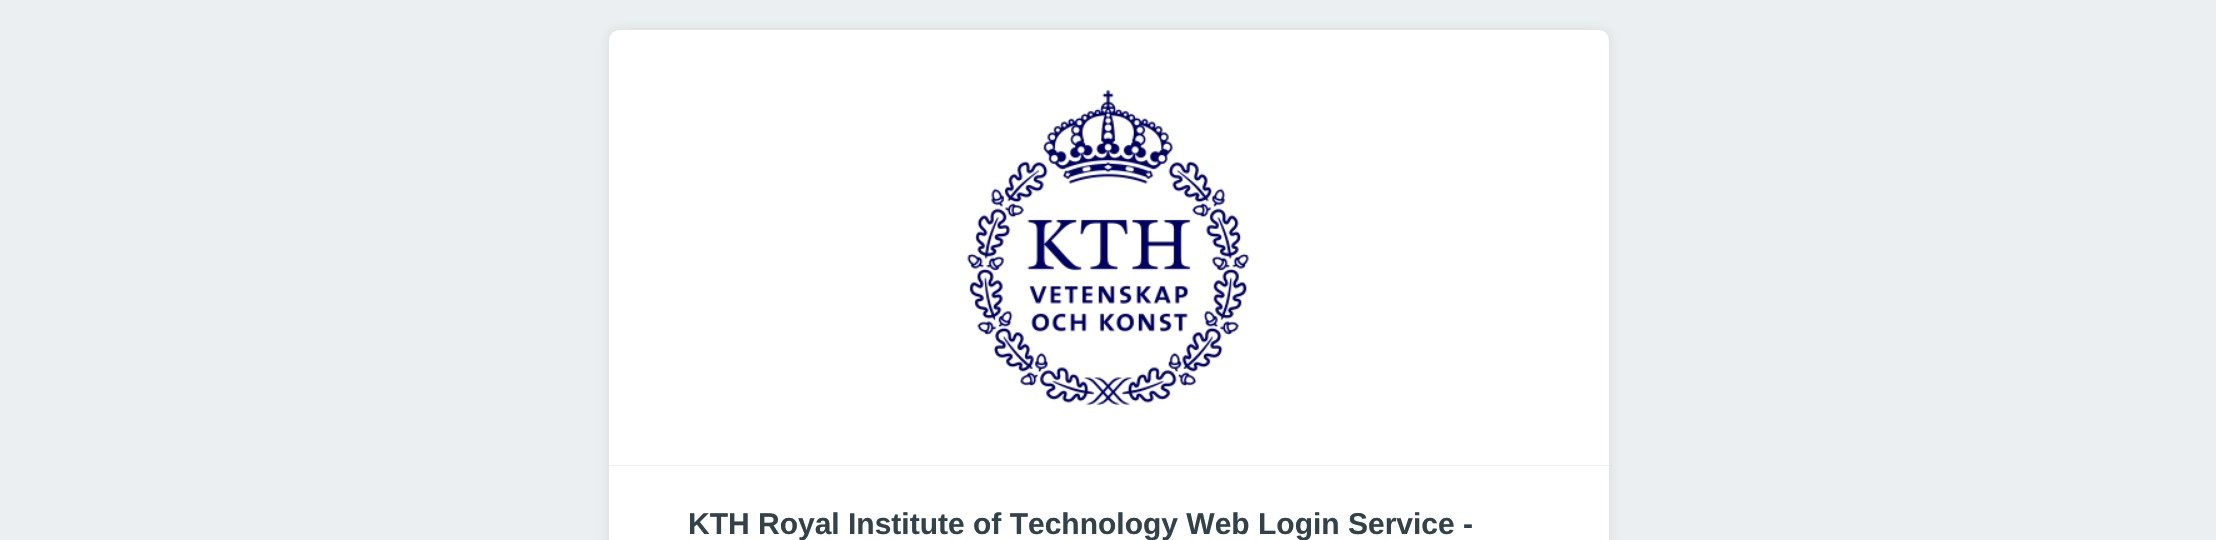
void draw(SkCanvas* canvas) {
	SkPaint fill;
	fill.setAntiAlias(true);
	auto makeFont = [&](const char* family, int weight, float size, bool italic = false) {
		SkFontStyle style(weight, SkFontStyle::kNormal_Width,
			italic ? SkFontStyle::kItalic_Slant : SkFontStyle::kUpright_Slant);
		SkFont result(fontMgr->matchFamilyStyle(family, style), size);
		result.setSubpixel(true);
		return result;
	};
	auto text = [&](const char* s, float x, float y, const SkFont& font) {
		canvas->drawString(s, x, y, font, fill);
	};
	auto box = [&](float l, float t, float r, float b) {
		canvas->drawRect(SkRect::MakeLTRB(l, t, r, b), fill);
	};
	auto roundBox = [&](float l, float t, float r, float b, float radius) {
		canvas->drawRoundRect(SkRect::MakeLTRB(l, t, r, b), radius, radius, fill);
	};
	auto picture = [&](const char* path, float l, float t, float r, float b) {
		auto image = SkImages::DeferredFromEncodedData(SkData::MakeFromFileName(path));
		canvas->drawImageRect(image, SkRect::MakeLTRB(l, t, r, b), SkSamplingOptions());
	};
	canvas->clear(0xFFECEFF1);
	fill.setColor(0x1C263238);
	fill.setMaskFilter(SkMaskFilter::MakeBlur(kNormal_SkBlurStyle, 6));
	canvas->drawRoundRect(SkRect::MakeLTRB(609, 30, 1609, 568), 10, 10, fill);
	fill.setMaskFilter(nullptr);
	fill.setColor(0xFFFFFFFF);
	roundBox(609, 30, 1609, 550, 10);
	fill.setColor(0xFFECEFF1);
	box(609, 465, 1609, 466);
	picture("image0.png", 967, 90, 1249, 405);
	auto font1 = makeFont("Liberation Sans", 700, 30);
	fill.setColor(0xFF32424A);
	text("KTH Royal Institute of Technology Web Login Service -", 688, 534, font1);
}
